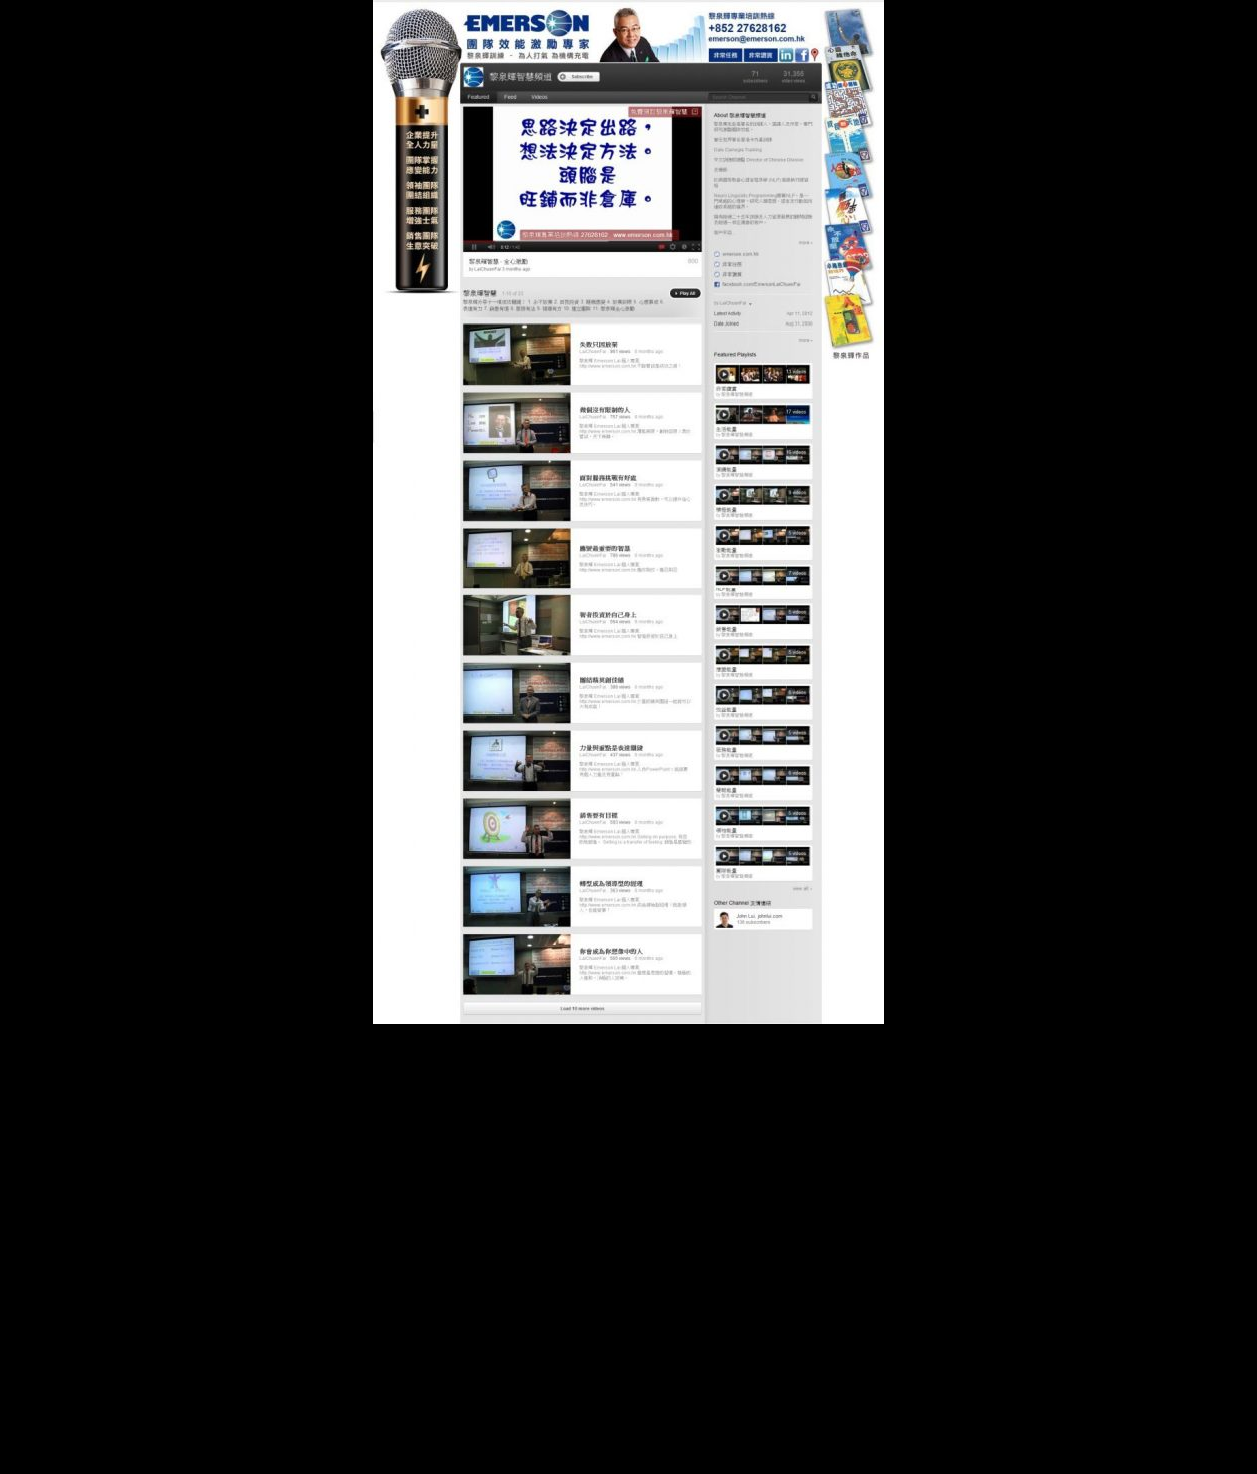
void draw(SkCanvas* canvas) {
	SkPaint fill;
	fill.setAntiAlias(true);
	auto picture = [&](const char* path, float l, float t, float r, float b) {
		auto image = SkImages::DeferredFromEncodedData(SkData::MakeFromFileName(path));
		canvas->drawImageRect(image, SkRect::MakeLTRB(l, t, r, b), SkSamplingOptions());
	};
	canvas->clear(0xFF000000);
	picture("image0.png", 373, 0, 884, 1024);
}
